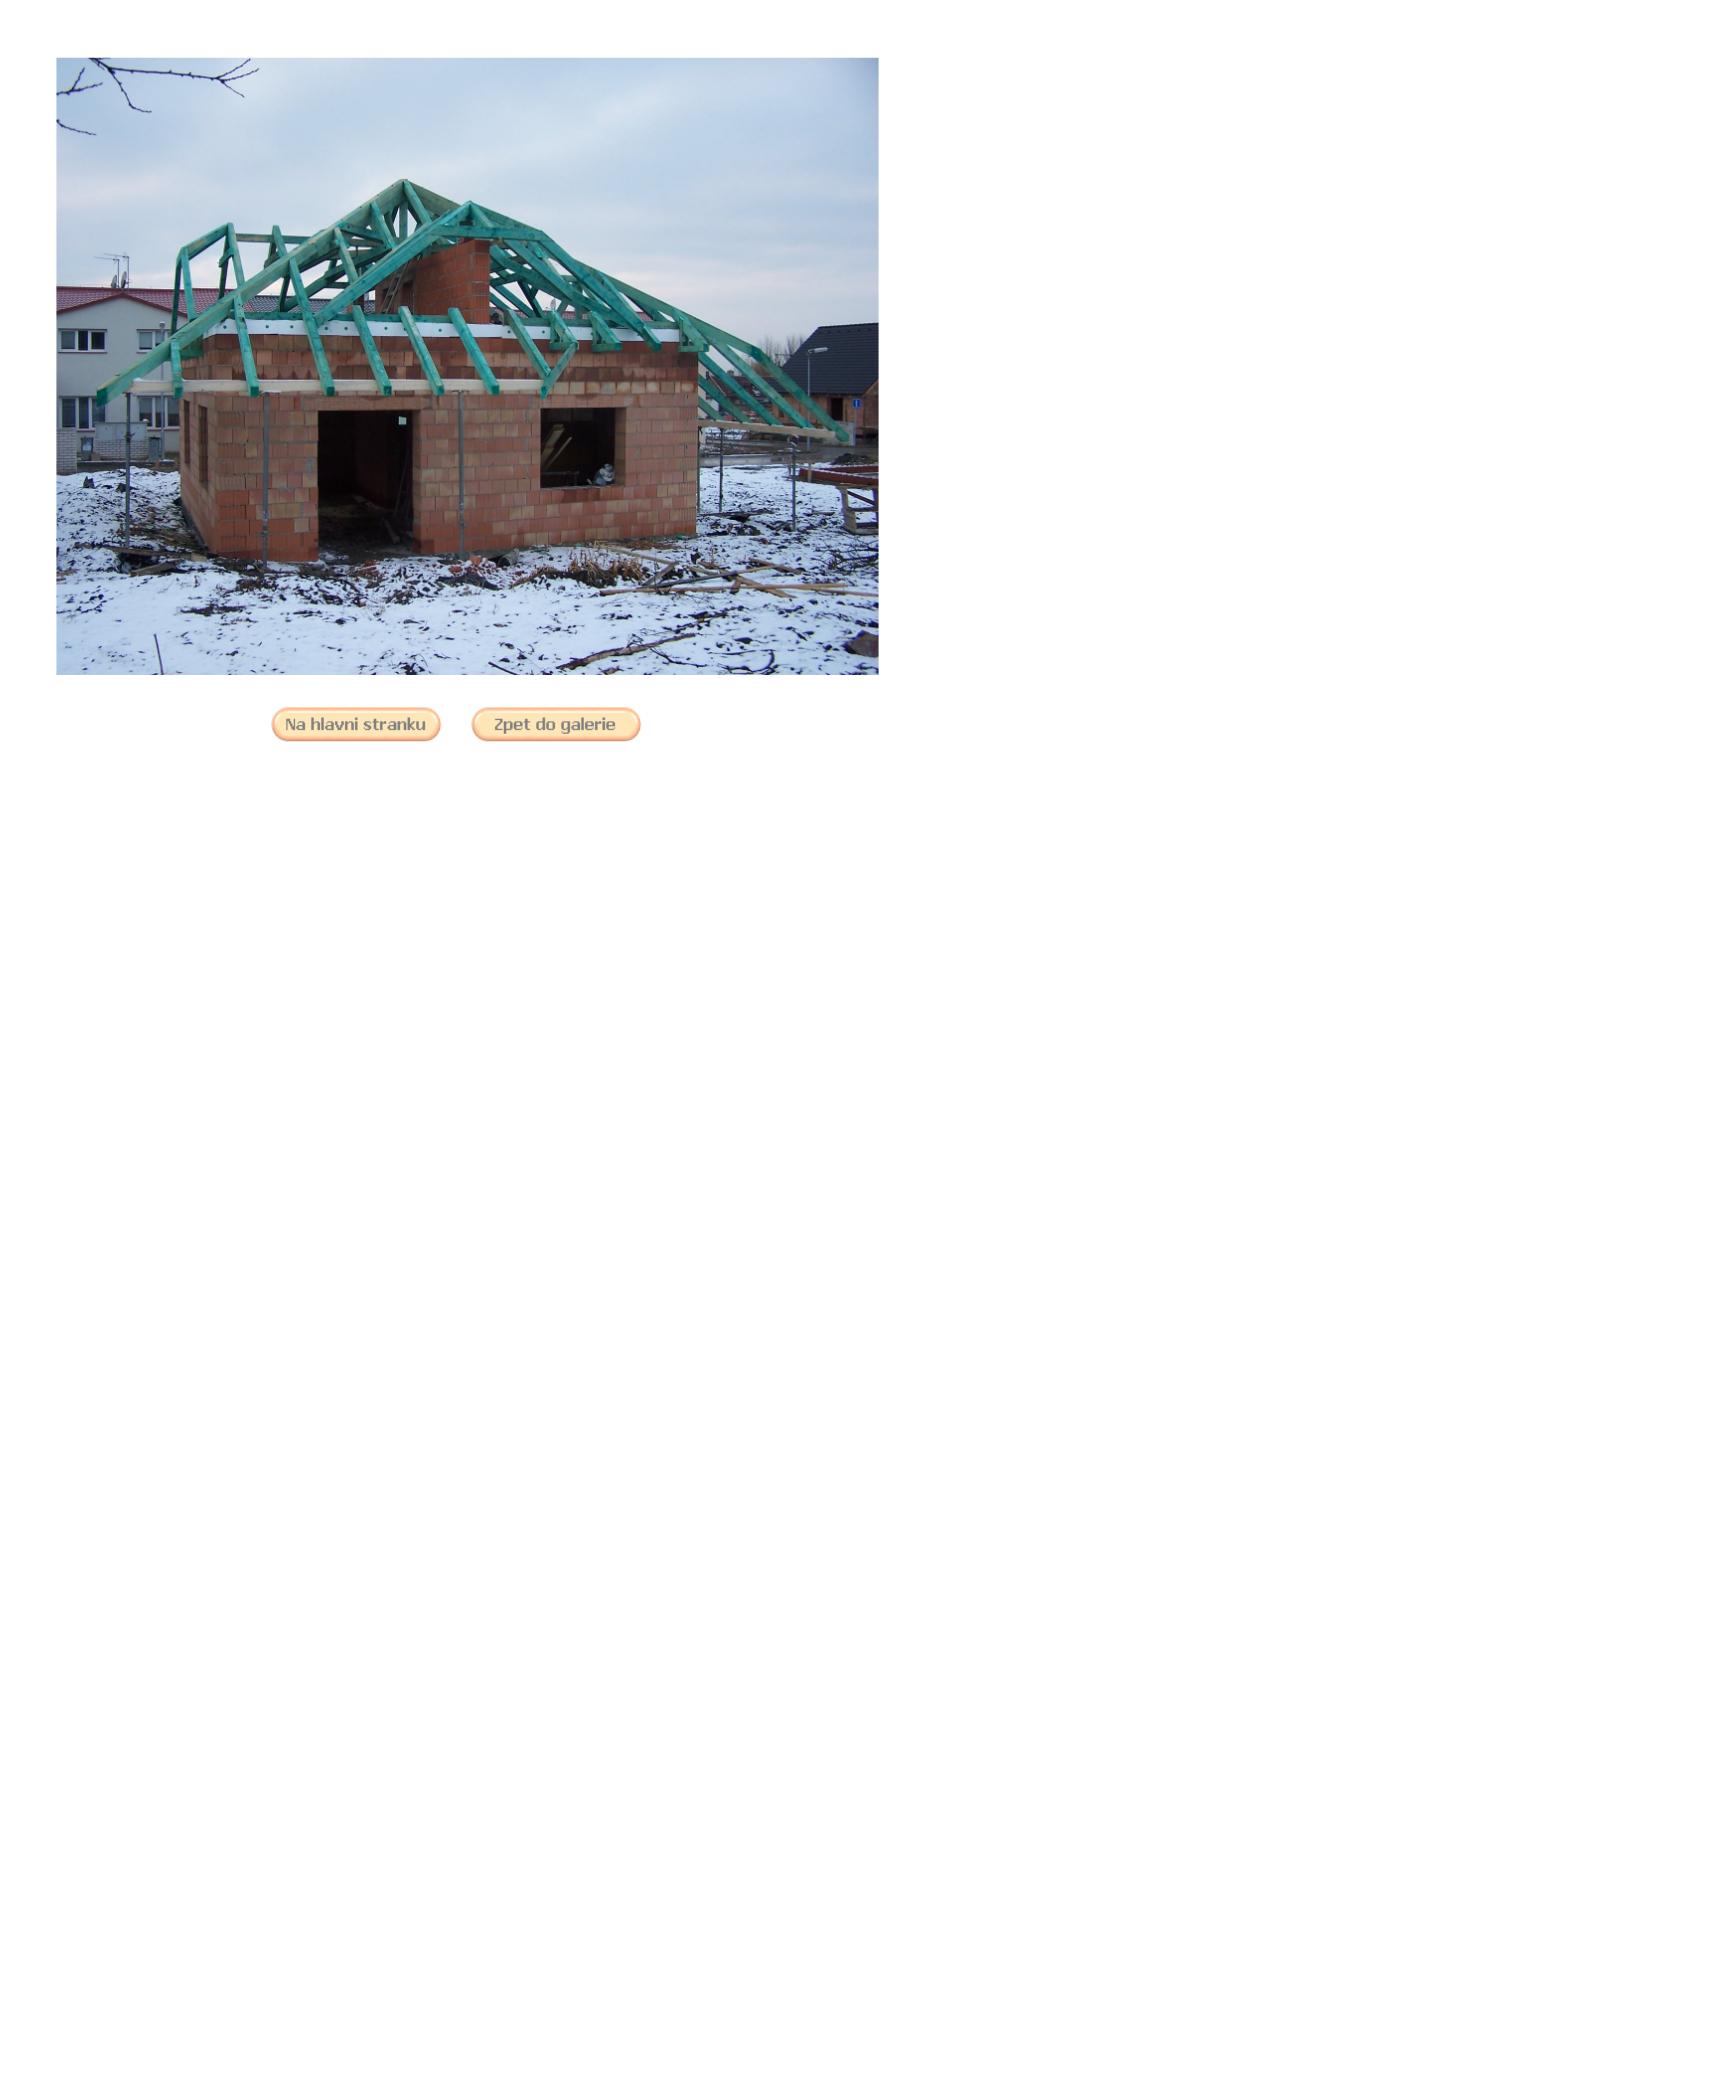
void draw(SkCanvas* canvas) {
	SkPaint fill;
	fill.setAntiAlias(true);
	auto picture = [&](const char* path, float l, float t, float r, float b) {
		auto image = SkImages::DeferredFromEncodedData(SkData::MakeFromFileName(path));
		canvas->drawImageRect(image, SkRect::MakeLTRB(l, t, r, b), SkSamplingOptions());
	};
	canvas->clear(0xFFFFFFFF);
	picture("image0.png", 56, 57, 879, 675);
	picture("image1.png", 271, 707, 442, 742);
	picture("image2.png", 471, 707, 642, 742);
}
